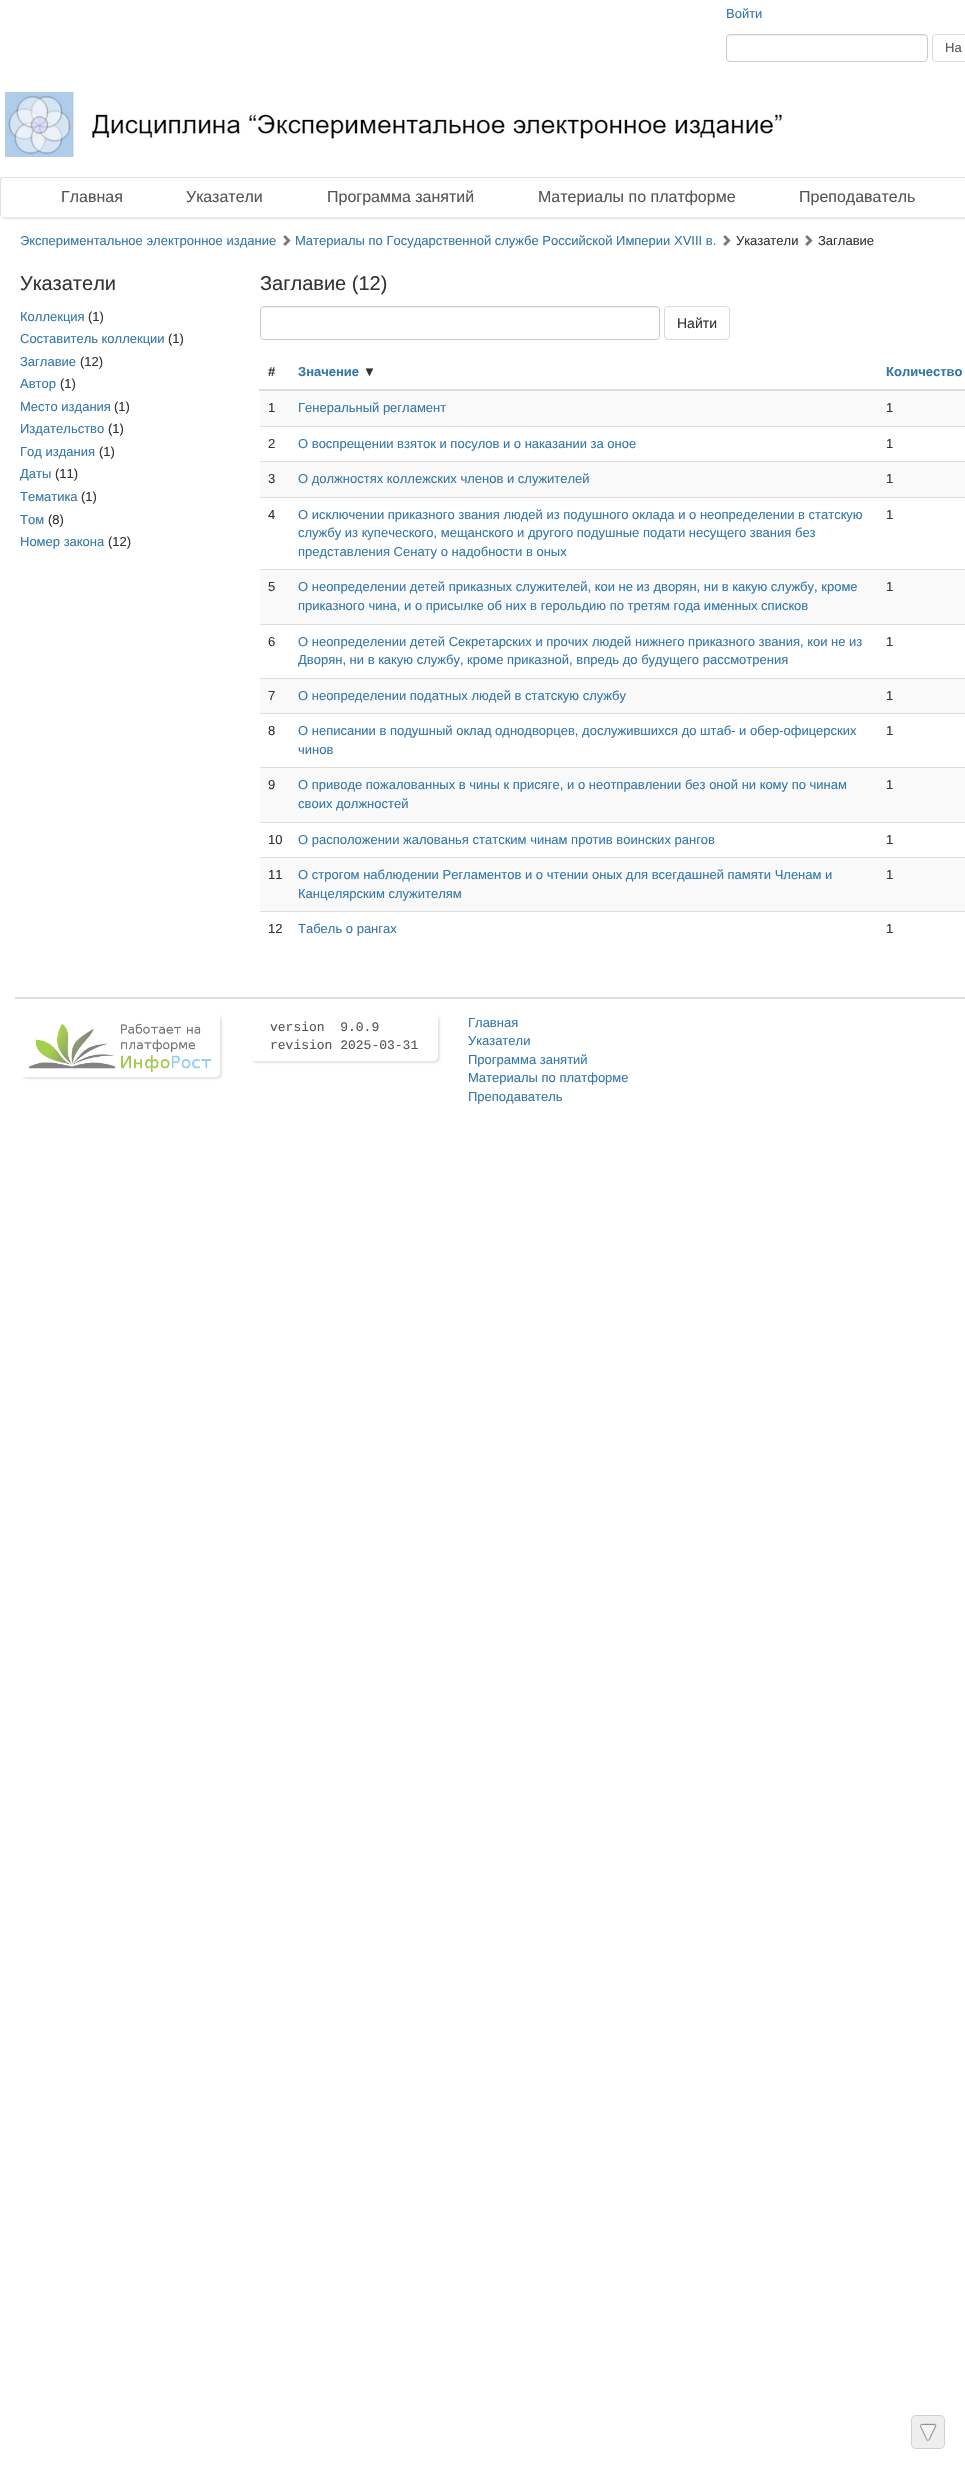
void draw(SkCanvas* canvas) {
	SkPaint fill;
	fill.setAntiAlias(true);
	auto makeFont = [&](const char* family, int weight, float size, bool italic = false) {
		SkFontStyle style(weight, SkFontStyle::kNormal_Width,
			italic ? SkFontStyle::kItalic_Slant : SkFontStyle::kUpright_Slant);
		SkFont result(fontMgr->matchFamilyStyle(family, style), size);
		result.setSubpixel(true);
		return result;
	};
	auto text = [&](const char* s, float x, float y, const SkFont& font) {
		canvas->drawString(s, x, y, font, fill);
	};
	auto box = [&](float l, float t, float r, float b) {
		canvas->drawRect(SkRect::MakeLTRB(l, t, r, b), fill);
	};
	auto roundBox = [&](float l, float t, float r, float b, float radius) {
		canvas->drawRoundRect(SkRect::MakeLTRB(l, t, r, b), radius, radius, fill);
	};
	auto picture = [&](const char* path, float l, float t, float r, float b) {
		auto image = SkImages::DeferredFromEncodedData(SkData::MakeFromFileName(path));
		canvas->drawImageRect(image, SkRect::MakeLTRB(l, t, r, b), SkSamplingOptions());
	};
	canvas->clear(0xFFFFFFFF);
	fill.setColor(0xFFECECEC);
	canvas->drawPath(SkPathBuilder().moveTo(730, 36).lineTo(924, 36).cubicTo(926, 36, 927, 37, 927, 39).cubicTo(927, 37, 926, 35, 924, 35).lineTo(730, 35).cubicTo(728, 35, 727, 37, 727, 39).cubicTo(727, 37, 728, 36, 730, 36).close().detach(), fill);
	fill.setStyle(SkPaint::kStroke_Style);
	fill.setStrokeWidth(1);
	fill.setColor(0xFFCCCCCC);
	canvas->drawRoundRect(SkRect::MakeLTRB(726.5f, 34.5f, 927.5f, 61.5f), 3.5f, 3.5f, fill);
	fill.setColor(0xFFDADADA);
	canvas->drawRoundRect(SkRect::MakeLTRB(932.5f, 34.5f, 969.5f, 61.5f), 3.5f, 3.5f, fill);
	picture("image0.png", 5, 92, 782, 157);
	canvas->save();
	canvas->clipRect(SkRect::MakeLTRB(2, 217, 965, 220));
	fill.setStyle(SkPaint::kFill_Style);
	fill.setColor(0x1A000000);
	fill.setMaskFilter(SkMaskFilter::MakeBlur(kNormal_SkBlurStyle, 1));
	canvas->drawRoundRect(SkRect::MakeLTRB(2, 179, 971, 219), 3, 3, fill);
	fill.setMaskFilter(nullptr);
	canvas->restore();
	fill.setColor(0xFFE0E0E0);
	canvas->drawPath(SkPathBuilder(SkPathFillType::kEvenOdd).moveTo(3, 177).lineTo(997, 177).cubicTo(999, 177, 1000, 178, 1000, 180).lineTo(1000, 214).cubicTo(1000, 216, 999, 217, 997, 217).lineTo(3, 217).cubicTo(1, 217, 0, 216, 0, 214).lineTo(0, 180).cubicTo(0, 178, 1, 177, 3, 177).close().moveTo(3, 178).lineTo(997, 178).cubicTo(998, 178, 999, 179, 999, 180).lineTo(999, 214).cubicTo(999, 216, 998, 217, 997, 217).lineTo(3, 217).cubicTo(2, 217, 1, 216, 1, 214).lineTo(1, 180).cubicTo(1, 179, 2, 178, 3, 178).close().detach(), fill);
	picture("image1.png", 283, 235, 291, 246);
	picture("image1.png", 723, 235, 731, 246);
	picture("image1.png", 805, 235, 813, 246);
	fill.setColor(0xFFECECEC);
	canvas->drawPath(SkPathBuilder().moveTo(264, 308).lineTo(656, 308).cubicTo(658, 308, 659, 309, 659, 311).cubicTo(659, 309, 658, 307, 656, 307).lineTo(264, 307).lineTo(262, 308).lineTo(261, 311).cubicTo(261, 309, 262, 308, 264, 308).close().detach(), fill);
	fill.setStyle(SkPaint::kStroke_Style);
	fill.setColor(0xFFCCCCCC);
	canvas->drawRoundRect(SkRect::MakeLTRB(260.5f, 306.5f, 659.5f, 339.5f), 3.5f, 3.5f, fill);
	fill.setColor(0xFFDADADA);
	canvas->drawRoundRect(SkRect::MakeLTRB(664.5f, 306.5f, 729.5f, 339.5f), 3.5f, 3.5f, fill);
	fill.setStyle(SkPaint::kFill_Style);
	fill.setColor(0xFFDDDDDD);
	box(259, 389, 965, 391);
	fill.setColor(0xFFF9F9F9);
	box(260, 391, 965, 426);
	fill.setColor(0xFFDDDDDD);
	box(260, 426, 965, 427);
	fill.setColor(0xFFF9F9F9);
	box(260, 462, 965, 497);
	fill.setColor(0xFFDDDDDD);
	box(260, 461, 965, 462);
	box(260, 497, 965, 498);
	fill.setColor(0xFFF9F9F9);
	box(260, 570, 965, 624);
	fill.setColor(0xFFDDDDDD);
	box(260, 569, 965, 570);
	box(260, 624, 965, 625);
	fill.setColor(0xFFF9F9F9);
	box(260, 679, 965, 713);
	fill.setColor(0xFFDDDDDD);
	box(260, 678, 965, 679);
	box(260, 713, 965, 714);
	fill.setColor(0xFFF9F9F9);
	box(260, 768, 965, 822);
	fill.setColor(0xFFDDDDDD);
	box(260, 767, 965, 768);
	box(260, 822, 965, 823);
	fill.setColor(0xFFF9F9F9);
	box(260, 858, 965, 911);
	fill.setColor(0xFFDDDDDD);
	box(260, 857, 965, 858);
	box(260, 911, 965, 912);
	fill.setColor(0xFFEEEEEE);
	canvas->drawRoundRect(SkRect::MakeLTRB(911.5f, 2415.5f, 944.5f, 2448.5f), 4.5f, 4.5f, fill);
	fill.setStyle(SkPaint::kStroke_Style);
	fill.setColor(0xFFD0D0D0);
	canvas->drawRoundRect(SkRect::MakeLTRB(911.5f, 2415.5f, 944.5f, 2448.5f), 4.5f, 4.5f, fill);
	picture("image2.png", 920, 2423, 937, 2441);
	fill.setStyle(SkPaint::kFill_Style);
	fill.setColor(0xFFDDDDDD);
	box(15, 997, 965, 999);
	canvas->save();
	canvas->clipPath(SkPathBuilder(SkPathFillType::kEvenOdd).moveTo(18, 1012).lineTo(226, 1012).lineTo(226, 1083).lineTo(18, 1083).close().moveTo(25, 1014).lineTo(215, 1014).cubicTo(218, 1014, 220, 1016, 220, 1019).lineTo(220, 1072).cubicTo(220, 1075, 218, 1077, 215, 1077).lineTo(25, 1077).cubicTo(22, 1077, 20, 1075, 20, 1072).lineTo(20, 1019).cubicTo(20, 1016, 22, 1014, 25, 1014).close().detach(), true);
	fill.setColor(0x1A000000);
	fill.setMaskFilter(SkMaskFilter::MakeBlur(kNormal_SkBlurStyle, 1));
	canvas->drawRoundRect(SkRect::MakeLTRB(22, 1016, 222, 1079), 5, 5, fill);
	fill.setMaskFilter(nullptr);
	canvas->restore();
	picture("image3.png", 29, 1023, 220, 1077);
	fill.setMaskFilter(SkMaskFilter::MakeBlur(kNormal_SkBlurStyle, 1));
	canvas->drawRoundRect(SkRect::MakeLTRB(252, 1016, 440, 1063), 5, 5, fill);
	fill.setMaskFilter(nullptr);
	fill.setColor(0xFFFFFFFF);
	roundBox(250, 1014, 438, 1061, 5);
	auto font1 = makeFont("Liberation Sans", 400, 13);
	fill.setColor(0xFF3377AA);
	text("Войти", 726, 18, font1);
	fill.setColor(0xFF555555);
	text("На", 945, 52, font1);
	auto font2 = makeFont("Liberation Sans", 400, 16);
	text("Главная", 61, 202, font2);
	text("Указатели", 186, 202, font2);
	text("Программа занятий", 327, 202, font2);
	text("Материалы по платформе", 538, 202, font2);
	text("Преподаватель", 799, 202, font2);
	fill.setColor(0xFF3377AA);
	text("Экспериментальное электронное издание", 20, 245, font1);
	text("Материалы по Государственной службе Российской Империи XVIII в.", 295, 245, font1);
	fill.setColor(0xFF333333);
	text("Указатели", 736, 245, font1);
	text("Заглавие", 818, 245, font1);
	auto font3 = makeFont("Liberation Sans", 400, 20);
	text("Указатели", 20, 290, font3);
	fill.setColor(0xFF3377AA);
	text("Коллекция", 20, 321, font1);
	fill.setColor(0xFF333333);
	text("(1)", 88, 321, font1);
	fill.setColor(0xFF3377AA);
	text("Составитель коллекции", 20, 343, font1);
	fill.setColor(0xFF333333);
	text("(1)", 168, 343, font1);
	fill.setColor(0xFF3377AA);
	text("Заглавие", 20, 366, font1);
	fill.setColor(0xFF333333);
	text("(12)", 80, 366, font1);
	fill.setColor(0xFF3377AA);
	text("Автор", 20, 388, font1);
	fill.setColor(0xFF333333);
	text("(1)", 60, 388, font1);
	fill.setColor(0xFF3377AA);
	text("Место издания", 20, 411, font1);
	fill.setColor(0xFF333333);
	text("(1)", 114, 411, font1);
	fill.setColor(0xFF3377AA);
	text("Издательство", 20, 433, font1);
	fill.setColor(0xFF333333);
	text("(1)", 108, 433, font1);
	fill.setColor(0xFF3377AA);
	text("Год издания", 20, 456, font1);
	fill.setColor(0xFF333333);
	text("(1)", 99, 456, font1);
	fill.setColor(0xFF3377AA);
	text("Даты", 20, 478, font1);
	fill.setColor(0xFF333333);
	text("(11)", 55, 478, font1);
	fill.setColor(0xFF3377AA);
	text("Тематика", 20, 501, font1);
	fill.setColor(0xFF333333);
	text("(1)", 81, 501, font1);
	fill.setColor(0xFF3377AA);
	text("Том", 20, 524, font1);
	fill.setColor(0xFF333333);
	text("(8)", 48, 524, font1);
	fill.setColor(0xFF3377AA);
	text("Номер закона", 20, 546, font1);
	fill.setColor(0xFF333333);
	text("(12)", 108, 546, font1);
	text("Заглавие (12)", 260, 290, font3);
	auto font4 = makeFont("Liberation Sans", 400, 14);
	text("Найти", 677, 328, font4);
	auto font5 = makeFont("Liberation Sans", 700, 13);
	text("#", 268, 376, font5);
	fill.setColor(0xFF3377AA);
	text("Значение", 298, 376, font5);
	fill.setColor(0xFF333333);
	text("▼", 363, 376, font5);
	fill.setColor(0xFF3377AA);
	text("Количество", 886, 376, font5);
	fill.setColor(0xFF333333);
	text("1", 268, 412, font1);
	fill.setColor(0xFF3377AA);
	text("Генеральный регламент", 298, 412, font1);
	fill.setColor(0xFF333333);
	text("1", 886, 412, font1);
	text("2", 268, 448, font1);
	fill.setColor(0xFF3377AA);
	text("О воспрещении взяток и посулов и о наказании за оное", 298, 448, font1);
	fill.setColor(0xFF333333);
	text("1", 886, 448, font1);
	text("3", 268, 483, font1);
	fill.setColor(0xFF3377AA);
	text("О должностях коллежских членов и служителей", 298, 483, font1);
	fill.setColor(0xFF333333);
	text("1", 886, 483, font1);
	text("4", 268, 519, font1);
	fill.setColor(0xFF3377AA);
	text("О исключении приказного звания людей из подушного оклада и о неопределении в статскую", 298, 519, font1);
	text("службу из купеческого, мещанского и другого подушные подати несущего звания без", 298, 537, font1);
	text("представления Сенату о надобности в оных", 298, 556, font1);
	fill.setColor(0xFF333333);
	text("1", 886, 519, font1);
	text("5", 268, 591, font1);
	fill.setColor(0xFF3377AA);
	text("О неопределении детей приказных служителей, кои не из дворян, ни в какую службу, кроме", 298, 591, font1);
	text("приказного чина, и о присылке об них в герольдию по третям года именных списков", 298, 610, font1);
	fill.setColor(0xFF333333);
	text("1", 886, 591, font1);
	text("6", 268, 646, font1);
	fill.setColor(0xFF3377AA);
	text("О неопределении детей Секретарских и прочих людей нижнего приказного звания, кои не из", 298, 646, font1);
	text("Дворян, ни в какую службу, кроме приказной, впредь до будущего рассмотрения", 298, 664, font1);
	fill.setColor(0xFF333333);
	text("1", 886, 646, font1);
	text("7", 268, 700, font1);
	fill.setColor(0xFF3377AA);
	text("О неопределении податных людей в статскую службу", 298, 700, font1);
	fill.setColor(0xFF333333);
	text("1", 886, 700, font1);
	text("8", 268, 735, font1);
	fill.setColor(0xFF3377AA);
	text("О неписании в подушный оклад однодворцев, дослужившихся до штаб- и обер-офицерских", 298, 735, font1);
	text("чинов", 298, 754, font1);
	fill.setColor(0xFF333333);
	text("1", 886, 735, font1);
	text("9", 268, 789, font1);
	fill.setColor(0xFF3377AA);
	text("О приводе пожалованных в чины к присяге, и о неотправлении без оной ни кому по чинам", 298, 789, font1);
	text("своих должностей", 298, 808, font1);
	fill.setColor(0xFF333333);
	text("1", 886, 789, font1);
	text("10", 268, 844, font1);
	fill.setColor(0xFF3377AA);
	text("О расположении жалованья статским чинам против воинских рангов", 298, 844, font1);
	fill.setColor(0xFF333333);
	text("1", 886, 844, font1);
	text("11", 268, 879, font1);
	fill.setColor(0xFF3377AA);
	text("О строгом наблюдении Регламентов и о чтении оных для всегдашней памяти Членам и", 298, 879, font1);
	text("Канцелярским служителям", 298, 898, font1);
	fill.setColor(0xFF333333);
	text("1", 886, 879, font1);
	text("12", 268, 933, font1);
	fill.setColor(0xFF3377AA);
	text("Табель о рангах", 298, 933, font1);
	fill.setColor(0xFF333333);
	text("1", 886, 933, font1);
	auto font6 = makeFont("Liberation Mono", 400, 13);
	fill.setColor(0xFF555555);
	text("version  9.0.9", 270, 1031, font6);
	text("revision 2025-03-31", 270, 1049, font6);
	fill.setColor(0xFF3377AA);
	text("Главная", 468, 1027, font1);
	text("Указатели", 468, 1045, font1);
	text("Программа занятий", 468, 1064, font1);
	text("Материалы по платформе", 468, 1082, font1);
	text("Преподаватель", 468, 1101, font1);
}
